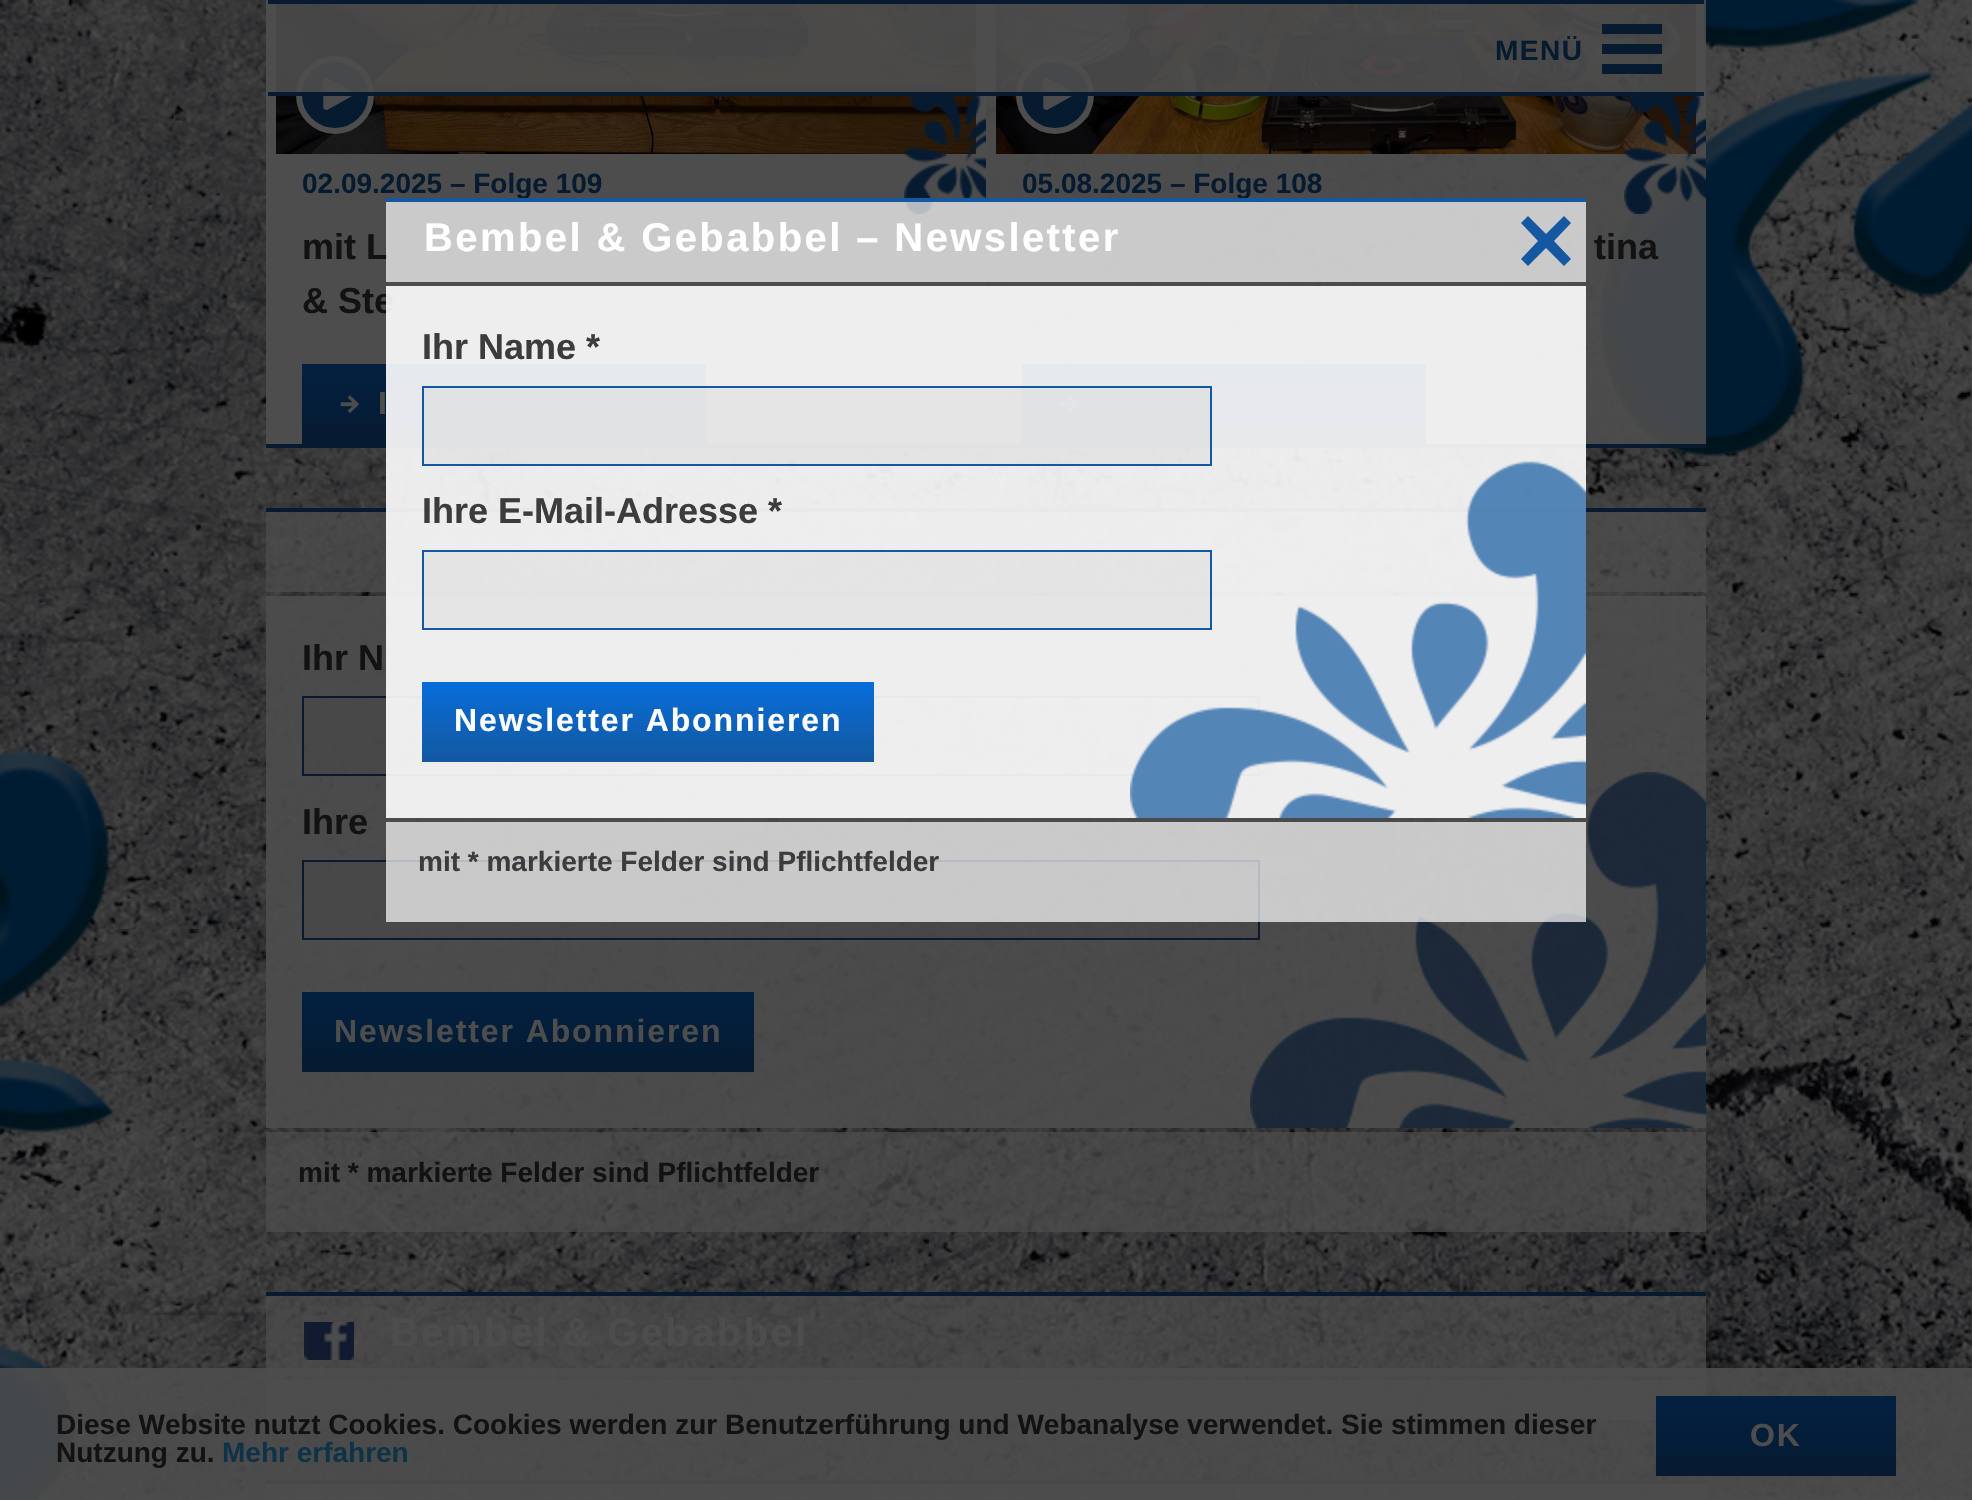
void draw(SkCanvas* canvas) {
	SkPaint fill;
	fill.setAntiAlias(true);
	auto makeFont = [&](const char* family, int weight, float size, bool italic = false) {
		SkFontStyle style(weight, SkFontStyle::kNormal_Width,
			italic ? SkFontStyle::kItalic_Slant : SkFontStyle::kUpright_Slant);
		SkFont result(fontMgr->matchFamilyStyle(family, style), size);
		result.setSubpixel(true);
		return result;
	};
	auto text = [&](const char* s, float x, float y, const SkFont& font) {
		canvas->drawString(s, x, y, font, fill);
	};
	auto spacedText = [&](const char* s, float x, float y, const SkFont& font, const SkPaint& ink, float letter, float word) {
		std::vector<SkGlyphID> glyphs(font.countText(s, strlen(s), SkTextEncoding::kUTF8));
		std::vector<float> xs(glyphs.size());
		font.textToGlyphs(s, strlen(s), SkTextEncoding::kUTF8, glyphs);
		font.getXPos(glyphs, xs, x);
		float extra = 0;
		for (size_t i = 0; i < glyphs.size(); i++) {
			xs[i] += extra;
			extra += letter + word * (glyphs[i] == font.unicharToGlyph(' '));
		}
		canvas->drawTextBlob(SkTextBlob::MakeFromPosHGlyphs(glyphs, xs, y, font), 0, 0, ink);
	};
	auto box = [&](float l, float t, float r, float b) {
		canvas->drawRect(SkRect::MakeLTRB(l, t, r, b), fill);
	};
	auto picture = [&](const char* path, float l, float t, float r, float b) {
		auto image = SkImages::DeferredFromEncodedData(SkData::MakeFromFileName(path));
		canvas->drawImageRect(image, SkRect::MakeLTRB(l, t, r, b), SkSamplingOptions());
	};
	canvas->clear(0xFF4D4D4D);
	picture("image0.png", 0, 0, 1972, 1500);
	picture("image1.png", 0, 0, 1972, 1500);
	fill.setColor(0xFC4D4D4D);
	box(266, 0, 986, 444);
	picture("image2.png", 276, 4, 976, 154);
	fill.setColor(0xFF061A30);
	canvas->drawCircle(335, 95, 36, fill);
	fill.setStyle(SkPaint::kStroke_Style);
	fill.setStrokeWidth(6);
	fill.setColor(0xFF4D4D4D);
	canvas->drawCircle(335, 95, 36, fill);
	picture("image3.png", 323, 77, 352, 110);
	picture("image4.png", 904, 82, 986, 214);
	fill.setStyle(SkPaint::kFill_Style);
	fill.setColor(0xE64D4D4D);
	box(986, 0, 1706, 444);
	picture("image6.png", 996, 4, 1696, 154);
	fill.setColor(0x33000000);
	fill.setMaskFilter(SkMaskFilter::MakeBlur(kNormal_SkBlurStyle, 2));
	canvas->drawRoundRect(SkRect::MakeLTRB(1016, 58, 1094, 136), 39, 39, fill);
	fill.setMaskFilter(nullptr);
	fill.setColor(0xFF061A30);
	canvas->drawCircle(1055, 95, 36, fill);
	fill.setStyle(SkPaint::kStroke_Style);
	fill.setColor(0xFF4D4D4D);
	canvas->drawCircle(1055, 95, 36, fill);
	picture("image3.png", 1043, 77, 1072, 110);
	picture("image7.png", 1624, 82, 1706, 214);
	fill.setStyle(SkPaint::kFill_Style);
	fill.setColor(0xE64D4D4D);
	box(276, 4, 1704, 92);
	fill.setColor(0xFF061A30);
	box(268, 0, 1704, 4);
	box(268, 92, 1704, 96);
	canvas->drawPath(SkPathBuilder().moveTo(1602, 24).lineTo(1662, 24).lineTo(1662, 34).lineTo(1602, 34).close().moveTo(1602, 44).lineTo(1662, 44).lineTo(1662, 54).lineTo(1602, 54).close().moveTo(1602, 64).lineTo(1662, 64).lineTo(1662, 74).lineTo(1602, 74).close().detach(), fill);
	box(266, 444, 1706, 448);
	{
		const SkColor colors[] = {0xFF022141, 0xFF061A30};
		const float stops[] = {0, 1};
		const SkPoint ends[] = {{504, 364}, {504, 444}};
		fill.setShader(SkGradientShader::MakeLinear(ends, colors, stops, 2, SkTileMode::kClamp));
		fill.setAlpha(255);
	}
	box(302, 364, 706, 444);
	picture("image5.png", 340, 395, 360, 413);
	{
		const SkColor colors[] = {0xFF022141, 0xFF061A30};
		const float stops[] = {0, 1};
		const SkPoint ends[] = {{1224, 364}, {1224, 444}};
		fill.setShader(SkGradientShader::MakeLinear(ends, colors, stops, 2, SkTileMode::kClamp));
		fill.setAlpha(255);
	}
	box(1022, 364, 1426, 444);
	picture("image5.png", 1060, 395, 1080, 413);
	fill.setShader(nullptr);
	fill.setColor(0xE64D4D4D);
	box(266, 596, 1706, 1128);
	fill.setColor(0x4D3F3F3F);
	canvas->drawRect(SkRect::MakeLTRB(303, 861, 1259, 939), fill);
	fill.setStyle(SkPaint::kStroke_Style);
	fill.setStrokeWidth(2);
	fill.setColor(0xFF061A30);
	canvas->drawRect(SkRect::MakeLTRB(303, 861, 1259, 939), fill);
	fill.setStyle(SkPaint::kFill_Style);
	fill.setColor(0x4D3F3F3F);
	canvas->drawRect(SkRect::MakeLTRB(303, 697, 1259, 775), fill);
	fill.setStyle(SkPaint::kStroke_Style);
	fill.setColor(0xFF061A30);
	canvas->drawRect(SkRect::MakeLTRB(303, 697, 1259, 775), fill);
	picture("image9.png", 1250, 772, 1706, 1128);
	fill.setStyle(SkPaint::kFill_Style);
	fill.setColor(0xB3FFFFFF);
	box(386, 822, 1586, 922);
	fill.setColor(0xB34D4D4D);
	box(266, 512, 1706, 592);
	fill.setColor(0xFF061A30);
	box(266, 508, 1706, 512);
	{
		const SkColor colors[] = {0xFF022141, 0xFF061A30};
		const float stops[] = {0, 1};
		const SkPoint ends[] = {{528, 992}, {528, 1072}};
		fill.setShader(SkGradientShader::MakeLinear(ends, colors, stops, 2, SkTileMode::kClamp));
		fill.setAlpha(255);
	}
	box(302, 992, 754, 1072);
	fill.setShader(nullptr);
	fill.setColor(0xB34D4D4D);
	box(266, 1132, 1706, 1232);
	box(266, 1296, 1706, 1376);
	fill.setColor(0xFF061A30);
	box(266, 1292, 1706, 1296);
	picture("image10.png", 304, 1322, 354, 1360);
	fill.setColor(0xE64D4D4D);
	box(266, 1380, 1706, 1420);
	fill.setColor(0xB34D4D4D);
	box(266, 1484, 1706, 1500);
	fill.setColor(0xFF061A30);
	box(266, 1480, 1706, 1484);
	fill.setColor(0xE64D4D4D);
	box(0, 1368, 1972, 1500);
	{
		const SkColor colors[] = {0xFF022141, 0xFF061A30};
		const float stops[] = {0, 1};
		const SkPoint ends[] = {{1776, 1396}, {1776, 1476}};
		fill.setShader(SkGradientShader::MakeLinear(ends, colors, stops, 2, SkTileMode::kClamp));
		fill.setAlpha(255);
	}
	box(1656, 1396, 1896, 1476);
	auto font1 = makeFont("Liberation Sans", 700, 28);
	fill.setShader(nullptr);
	fill.setColor(0xFF061A30);
	spacedText("MENÜ", 1495, 60, font1, fill, 1.5f, 0);
	text("02.09.2025 – Folge 109", 302, 193, font1);
	auto font2 = makeFont("Liberation Sans", 700, 36);
	fill.setColor(0xFF121212);
	text("mit L", 302, 259, font2);
	text("& Ste", 302, 313, font2);
	auto font3 = makeFont("Liberation Sans", 700, 32);
	fill.setColor(0xFF4D4D4D);
	spacedText("I", 378, 414, font3, fill, 1.9f, 0);
	fill.setColor(0xFF061A30);
	text("05.08.2025 – Folge 108", 1022, 193, font1);
	fill.setColor(0xFF121212);
	text("tina", 1594, 259, font2);
	fill.setColor(0xB3FFFFFF);
	box(386, 202, 1586, 282);
	fill.setColor(0xFF1358A0);
	box(386, 198, 1586, 202);
	auto font4 = makeFont("Liberation Sans", 700, 40);
	fill.setColor(0xFFFFFFFF);
	spacedText("Bembel & Gebabbel – Newsletter", 424, 251, font4, fill, 2.4f, 0);
	fill.setColor(0xFF1358A0);
	canvas->drawPath(SkPathBuilder().moveTo(1571, 223).lineTo(1564, 216).lineTo(1546, 234).lineTo(1528, 216).lineTo(1521, 223).lineTo(1538, 241).lineTo(1521, 259).lineTo(1528, 266).lineTo(1546, 248).lineTo(1564, 266).lineTo(1571, 259).lineTo(1554, 241).close().detach(), fill);
	fill.setColor(0xE6FFFFFF);
	box(386, 286, 1586, 818);
	fill.setColor(0xFF3C3C3C);
	text("Ihr Name *", 422, 359, font2);
	fill.setColor(0x4DD2D2D2);
	canvas->drawRect(SkRect::MakeLTRB(423, 387, 1211, 465), fill);
	fill.setStyle(SkPaint::kStroke_Style);
	fill.setColor(0xFF1358A0);
	canvas->drawRect(SkRect::MakeLTRB(423, 387, 1211, 465), fill);
	fill.setStyle(SkPaint::kFill_Style);
	fill.setColor(0xFF3C3C3C);
	text("Ihre E-Mail-Adresse *", 422, 523, font2);
	fill.setColor(0x4DD2D2D2);
	canvas->drawRect(SkRect::MakeLTRB(423, 551, 1211, 629), fill);
	fill.setStyle(SkPaint::kStroke_Style);
	fill.setColor(0xFF1358A0);
	canvas->drawRect(SkRect::MakeLTRB(423, 551, 1211, 629), fill);
	fill.setStyle(SkPaint::kFill_Style);
	{
		const SkColor colors[] = {0xFF086DD9, 0xFF1358A0};
		const float stops[] = {0, 1};
		const SkPoint ends[] = {{648, 682}, {648, 762}};
		fill.setShader(SkGradientShader::MakeLinear(ends, colors, stops, 2, SkTileMode::kClamp));
		fill.setAlpha(255);
	}
	box(422, 682, 874, 762);
	fill.setShader(nullptr);
	fill.setColor(0xFFFFFFFF);
	spacedText("Newsletter Abonnieren", 454, 731, font3, fill, 1.9f, 0);
	picture("image8.png", 1130, 461, 1586, 818);
	fill.setColor(0xFF3C3C3C);
	text("mit * markierte Felder sind Pflichtfelder", 418, 871, font1);
	fill.setColor(0xFF121212);
	text("Ihr N", 302, 670, font2);
	text("Ihre", 302, 834, font2);
	fill.setColor(0xFF4D4D4D);
	spacedText("Newsletter Abonnieren", 334, 1042, font3, fill, 1.9f, 0);
	fill.setColor(0xFF121212);
	text("mit * markierte Felder sind Pflichtfelder", 298, 1182, font1);
	fill.setColor(0xFF4D4D4D);
	spacedText("Bembel & Gebabbel", 390, 1346, font4, fill, 2.4f, 0);
	fill.setColor(0xFF121212);
	text("Diese Website nutzt Cookies. Cookies werden zur Benutzerführung und Webanalyse verwendet. Sie stimmen dieser", 56, 1434, font1);
	text("Nutzung zu.", 56, 1462, font1);
	fill.setColor(0xFF0F3248);
	text("Mehr erfahren", 222, 1462, font1);
	fill.setColor(0xFF4D4D4D);
	spacedText("OK", 1750, 1446, font3, fill, 1.9f, 0);
}
